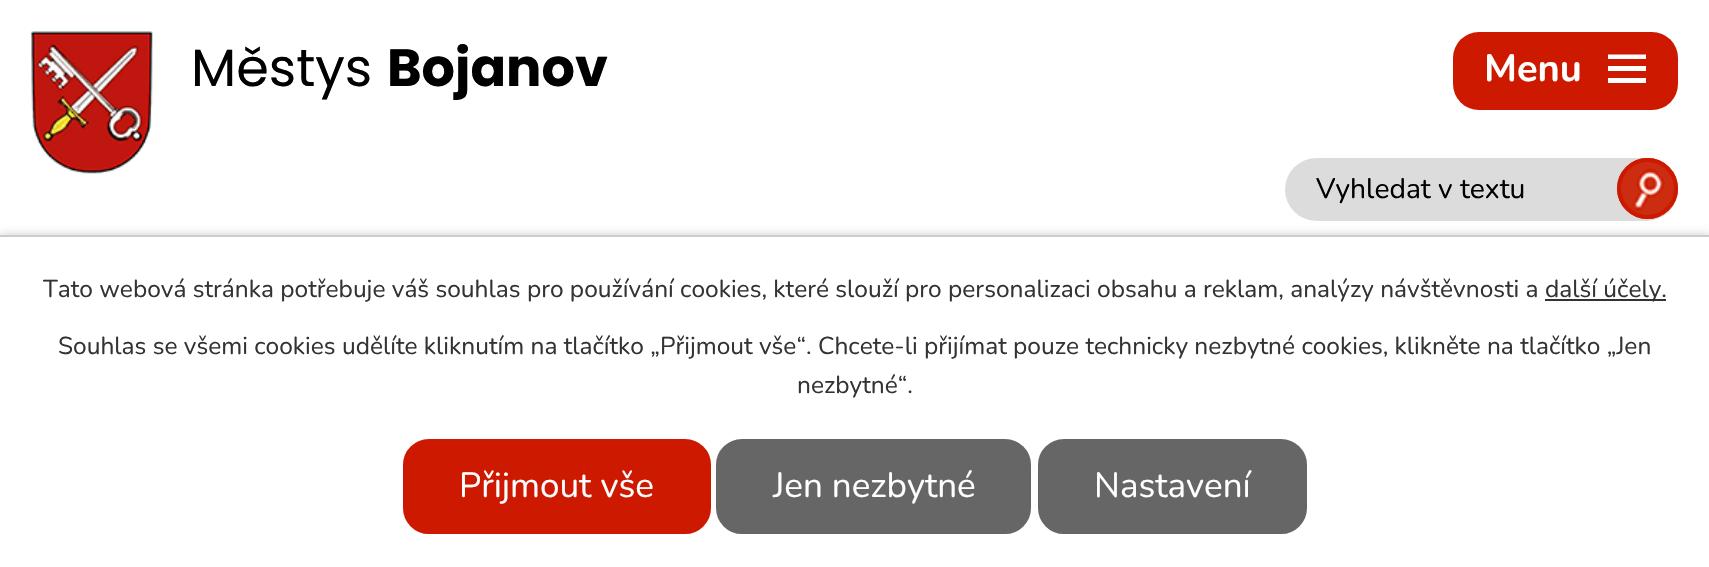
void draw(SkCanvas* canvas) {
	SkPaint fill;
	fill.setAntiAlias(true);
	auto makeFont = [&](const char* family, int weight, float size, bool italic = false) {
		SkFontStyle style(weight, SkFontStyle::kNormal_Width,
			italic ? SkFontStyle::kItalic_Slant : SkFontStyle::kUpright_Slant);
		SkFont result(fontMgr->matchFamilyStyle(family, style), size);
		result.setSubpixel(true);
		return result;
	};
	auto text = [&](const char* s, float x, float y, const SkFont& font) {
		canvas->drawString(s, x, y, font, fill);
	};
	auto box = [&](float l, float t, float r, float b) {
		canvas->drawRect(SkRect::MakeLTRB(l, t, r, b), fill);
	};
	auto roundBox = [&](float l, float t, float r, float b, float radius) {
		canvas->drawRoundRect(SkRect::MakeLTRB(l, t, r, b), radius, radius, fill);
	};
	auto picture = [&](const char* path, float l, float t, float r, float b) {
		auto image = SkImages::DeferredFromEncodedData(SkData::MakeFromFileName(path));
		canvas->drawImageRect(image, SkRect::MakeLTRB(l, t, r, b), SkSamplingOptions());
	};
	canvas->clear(0xFFFFFFFF);
	picture("image0.png", 31, 31, 153, 174);
	fill.setColor(0xFFDCDCDC);
	roundBox(1285, 158, 1678, 221, 31.5f);
	fill.setColor(0xFFCC1900);
	canvas->drawCircle(1647.5f, 188.5f, 30.5f, fill);
	picture("image1.png", 1621, 162, 1674, 215);
	fill.setStyle(SkPaint::kStroke_Style);
	fill.setStrokeWidth(4);
	canvas->drawCircle(1647.5f, 188.5f, 28.5f, fill);
	fill.setStyle(SkPaint::kFill_Style);
	roundBox(1453, 32, 1678, 110, 26);
	fill.setColor(0xFFFFFFFF);
	canvas->drawPath(SkPathBuilder().moveTo(1608, 83).lineTo(1608, 78).lineTo(1646, 78).lineTo(1646, 83).close().moveTo(1608, 54.5f).lineTo(1646, 54.5f).lineTo(1646, 59).lineTo(1608, 59).close().moveTo(1608, 71).lineTo(1608, 66).lineTo(1646, 66).lineTo(1646, 71).close().detach(), fill);
	fill.setColor(0x33000000);
	fill.setMaskFilter(SkMaskFilter::MakeBlur(kNormal_SkBlurStyle, 4.5f));
	canvas->drawRect(SkRect::MakeLTRB(0, 235, 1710, 567), fill);
	fill.setMaskFilter(nullptr);
	fill.setColor(0xFFFFFFFF);
	box(0, 237, 1709, 567);
	fill.setColor(0xFFCCCCCC);
	box(0, 235, 1709, 237);
	fill.setColor(0xFF333333);
	box(1545, 299, 1666, 301);
	fill.setColor(0xFFCC1900);
	canvas->drawRoundRect(SkRect::MakeLTRB(405, 441, 709, 532), 24, 24, fill);
	fill.setStyle(SkPaint::kStroke_Style);
	canvas->drawRoundRect(SkRect::MakeLTRB(405, 441, 709, 532), 24, 24, fill);
	fill.setStyle(SkPaint::kFill_Style);
	fill.setColor(0xFF666666);
	canvas->drawRoundRect(SkRect::MakeLTRB(718, 441, 1029, 532), 24, 24, fill);
	fill.setStyle(SkPaint::kStroke_Style);
	canvas->drawRoundRect(SkRect::MakeLTRB(718, 441, 1029, 532), 24, 24, fill);
	fill.setStyle(SkPaint::kFill_Style);
	canvas->drawRoundRect(SkRect::MakeLTRB(1040, 441, 1305, 532), 24, 24, fill);
	fill.setStyle(SkPaint::kStroke_Style);
	canvas->drawRoundRect(SkRect::MakeLTRB(1040, 441, 1305, 532), 24, 24, fill);
	auto font1 = makeFont("Poppins", 400, 52.5f);
	fill.setStyle(SkPaint::kFill_Style);
	fill.setColor(0xFF000000);
	text("Městys", 191, 86, font1);
	auto font2 = makeFont("Poppins", 700, 52.5f);
	text("Bojanov", 387, 86, font2);
	auto font3 = makeFont("Nunito", 400, 28.25f);
	text("Vyhledat v textu", 1316, 198, font3);
	auto font4 = makeFont("Nunito", 700, 38);
	fill.setColor(0xFFFFFFFF);
	text("Menu", 1484, 81, font4);
	auto font5 = makeFont("Nunito", 400, 24.5f);
	fill.setColor(0xFF333333);
	text("Tato webová stránka potřebuje váš souhlas pro používání cookies, které slouží pro personalizaci obsahu a reklam, analýzy návštěvnosti a", 43, 297, font5);
	text("další účely.", 1545, 297, font5);
	text("Souhlas se všemi cookies udělíte kliknutím na tlačítko „Přijmout vše“. Chcete-li přijímat pouze technicky nezbytné cookies, klikněte na tlačítko „Jen", 58, 354, font5);
	text("nezbytné“.", 797, 393, font5);
	auto font6 = makeFont("Nunito", 400, 35);
	fill.setColor(0xFFFFFFFF);
	text("Přijmout vše", 459, 497, font6);
	text("Jen nezbytné", 773, 497, font6);
	text("Nastavení", 1094, 497, font6);
}
